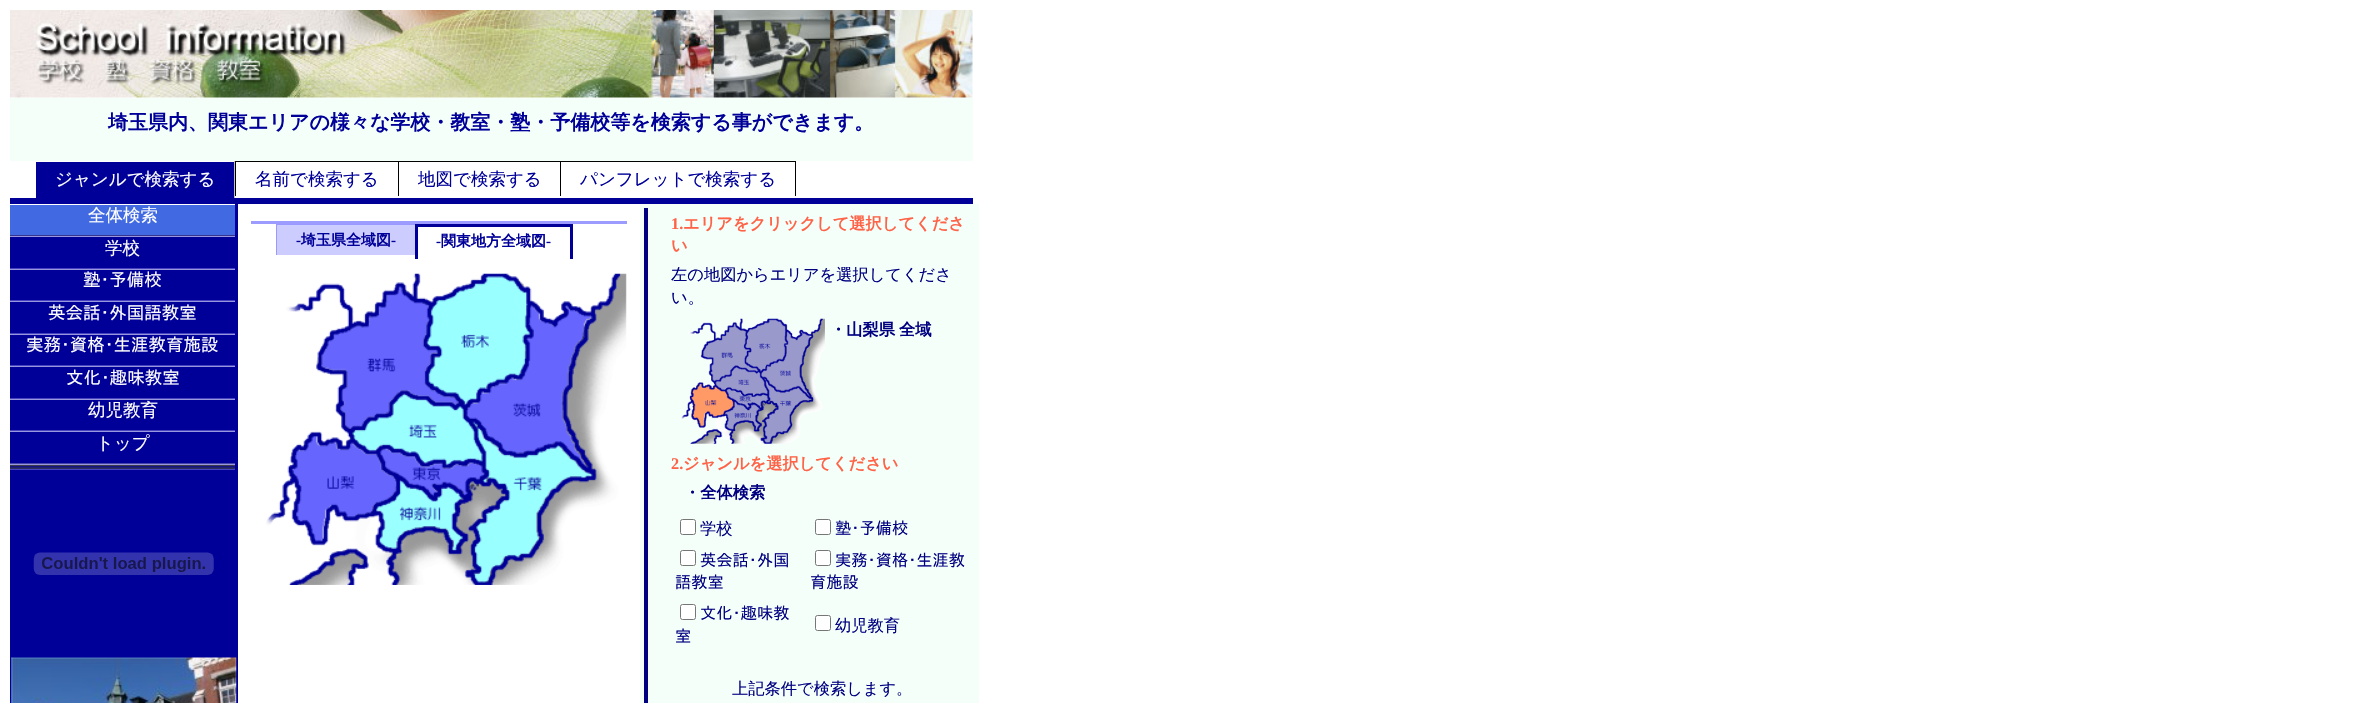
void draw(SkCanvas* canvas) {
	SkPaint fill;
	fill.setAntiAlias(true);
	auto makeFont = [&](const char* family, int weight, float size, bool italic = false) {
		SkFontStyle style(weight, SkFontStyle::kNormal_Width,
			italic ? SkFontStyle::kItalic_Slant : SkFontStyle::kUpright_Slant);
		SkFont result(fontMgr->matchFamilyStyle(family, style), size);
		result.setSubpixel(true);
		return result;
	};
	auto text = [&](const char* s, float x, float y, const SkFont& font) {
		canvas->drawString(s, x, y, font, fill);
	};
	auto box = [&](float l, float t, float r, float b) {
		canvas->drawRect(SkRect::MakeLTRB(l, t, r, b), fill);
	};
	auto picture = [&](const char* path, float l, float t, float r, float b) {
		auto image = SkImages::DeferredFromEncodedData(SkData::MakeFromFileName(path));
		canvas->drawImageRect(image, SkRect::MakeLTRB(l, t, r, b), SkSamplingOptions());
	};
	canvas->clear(0xFFFFFFFF);
	picture("image0.png", 10, 10, 973, 98);
	fill.setColor(0xFFF5FFFA);
	box(10, 98, 973, 161);
	fill.setColor(0xFF000099);
	box(36, 162, 234, 198);
	fill.setColor(0xFFC0C0C0);
	box(234, 161, 235, 198);
	fill.setColor(0xFF000000);
	box(235, 161, 796, 162);
	box(235, 161, 236, 196);
	box(398, 161, 399, 196);
	box(795, 161, 796, 196);
	box(560, 161, 561, 196);
	fill.setColor(0xFF000099);
	box(10, 198, 973, 204);
	box(10, 204, 238, 703);
	fill.setColor(0xFF4169E1);
	box(10, 205, 235, 235);
	fill.setColor(0xFFFFFFFF);
	box(10, 204, 235, 205);
	fill.setColor(0xFF36348E);
	box(10, 235, 235, 236);
	fill.setColor(0xFF9997DD);
	box(10, 236, 235, 237);
	fill.setColor(0xFF4643C1);
	box(10, 268, 235, 269);
	fill.setColor(0xFF9997DD);
	box(10, 269, 235, 270);
	fill.setColor(0xFF4643C1);
	box(10, 300, 235, 301);
	fill.setColor(0xFF9997DD);
	box(10, 301, 235, 302);
	fill.setColor(0xFF4643C1);
	box(10, 333, 235, 334);
	fill.setColor(0xFF9997DD);
	box(10, 334, 235, 335);
	fill.setColor(0xFF4643C1);
	box(10, 365, 235, 366);
	fill.setColor(0xFF9997DD);
	box(10, 366, 235, 367);
	fill.setColor(0xFF4643C1);
	box(10, 398, 235, 399);
	fill.setColor(0xFF9997DD);
	box(10, 399, 235, 400);
	fill.setColor(0xFF4643C1);
	box(10, 430, 235, 431);
	fill.setColor(0xFF9997DD);
	box(10, 431, 235, 432);
	fill.setColor(0xFF4643C1);
	box(10, 463, 235, 464);
	picture("image1.png", 10, 463, 235, 469);
	fill.setColor(0xFF9997DD);
	box(10, 464, 235, 465);
	fill.setColor(0xFF4643C1);
	box(10, 469, 235, 470);
	picture("image2.png", 33, 552, 214, 575);
	picture("image3.png", 11, 657, 237, 703);
	fill.setColor(0xFF9C9CFF);
	box(251, 221, 627, 224);
	fill.setColor(0xFFCCCCFF);
	box(277, 225, 415, 255);
	fill.setColor(0xFF9999FF);
	box(276, 224, 415, 225);
	box(276, 224, 277, 255);
	fill.setColor(0xFF000099);
	box(415, 224, 573, 227);
	box(570, 224, 573, 259);
	box(415, 224, 418, 259);
	picture("image4.png", 266, 273, 627, 585);
	fill.setColor(0xFFF5FFFA);
	box(640, 204, 979, 703);
	fill.setColor(0xFF000080);
	box(644, 208, 648, 703);
	picture("image5.png", 679, 318, 825, 444);
	fill.setColor(0xFFFFFFFF);
	canvas->drawRoundRect(SkRect::MakeLTRB(680.5f, 519.5f, 695.5f, 534.5f), 2, 2, fill);
	fill.setStyle(SkPaint::kStroke_Style);
	fill.setStrokeWidth(1);
	fill.setColor(0xFF767676);
	canvas->drawRoundRect(SkRect::MakeLTRB(680.5f, 519.5f, 695.5f, 534.5f), 2, 2, fill);
	fill.setStyle(SkPaint::kFill_Style);
	fill.setColor(0xFFFFFFFF);
	canvas->drawRoundRect(SkRect::MakeLTRB(815.5f, 519.5f, 830.5f, 534.5f), 2, 2, fill);
	fill.setStyle(SkPaint::kStroke_Style);
	fill.setColor(0xFF767676);
	canvas->drawRoundRect(SkRect::MakeLTRB(815.5f, 519.5f, 830.5f, 534.5f), 2, 2, fill);
	fill.setStyle(SkPaint::kFill_Style);
	fill.setColor(0xFFFFFFFF);
	canvas->drawRoundRect(SkRect::MakeLTRB(680.5f, 550.5f, 695.5f, 565.5f), 2, 2, fill);
	fill.setStyle(SkPaint::kStroke_Style);
	fill.setColor(0xFF767676);
	canvas->drawRoundRect(SkRect::MakeLTRB(680.5f, 550.5f, 695.5f, 565.5f), 2, 2, fill);
	fill.setStyle(SkPaint::kFill_Style);
	fill.setColor(0xFFFFFFFF);
	canvas->drawRoundRect(SkRect::MakeLTRB(815.5f, 550.5f, 830.5f, 565.5f), 2, 2, fill);
	fill.setStyle(SkPaint::kStroke_Style);
	fill.setColor(0xFF767676);
	canvas->drawRoundRect(SkRect::MakeLTRB(815.5f, 550.5f, 830.5f, 565.5f), 2, 2, fill);
	fill.setStyle(SkPaint::kFill_Style);
	fill.setColor(0xFFFFFFFF);
	canvas->drawRoundRect(SkRect::MakeLTRB(680.5f, 604.5f, 695.5f, 619.5f), 2, 2, fill);
	fill.setStyle(SkPaint::kStroke_Style);
	fill.setColor(0xFF767676);
	canvas->drawRoundRect(SkRect::MakeLTRB(680.5f, 604.5f, 695.5f, 619.5f), 2, 2, fill);
	fill.setStyle(SkPaint::kFill_Style);
	fill.setColor(0xFFFFFFFF);
	canvas->drawRoundRect(SkRect::MakeLTRB(815.5f, 615.5f, 830.5f, 630.5f), 2, 2, fill);
	fill.setStyle(SkPaint::kStroke_Style);
	fill.setColor(0xFF767676);
	canvas->drawRoundRect(SkRect::MakeLTRB(815.5f, 615.5f, 830.5f, 630.5f), 2, 2, fill);
	auto font1 = makeFont("WenQuanYi Zen Hei", 700, 20);
	fill.setStyle(SkPaint::kFill_Style);
	fill.setColor(0xFF000099);
	text("埼玉県内、関東エリアの様々な学校・教室・塾・予備校等を検索する事ができます。", 108, 129, font1);
	auto font2 = makeFont("WenQuanYi Zen Hei", 500, 17.5f);
	fill.setColor(0xFFFFFFFF);
	text("ジャンルで検索する", 55, 185, font2);
	fill.setColor(0xFF000099);
	text("名前で検索する", 255, 185, font2);
	text("地図で検索する", 418, 185, font2);
	text("パンフレットで検索する", 580, 185, font2);
	fill.setColor(0xFFFFFFFF);
	text("全体検索", 88, 221, font2);
	text("学校", 105, 254, font2);
	auto font3 = makeFont("IPAGothic", 400, 17.5f);
	text("塾･予備校", 83, 286, font3);
	text("英会話･外国語教室", 48, 319, font3);
	text("実務･資格･生涯教育施設", 26, 351, font3);
	text("文化･趣味教室", 66, 384, font3);
	text("幼児教育", 88, 416, font2);
	text("トップ", 96, 449, font2);
	auto font4 = makeFont("Liberation Serif", 700, 15);
	fill.setColor(0xFF000099);
	text("-", 296, 245, font4);
	auto font5 = makeFont("WenQuanYi Zen Hei", 700, 15);
	text("埼玉県全域図", 301, 245, font5);
	text("-", 391, 245, font4);
	text("-", 436, 246, font4);
	text("関東地方全域図", 441, 246, font5);
	text("-", 546, 246, font4);
	auto font6 = makeFont("Liberation Serif", 700, 16.25f);
	fill.setColor(0xFFFF6347);
	text("1.", 671, 229, font6);
	auto font7 = makeFont("WenQuanYi Zen Hei", 700, 16.25f);
	text("エリアをクリックして選択してくださ", 683, 229, font7);
	text("い", 671, 251, font7);
	auto font8 = makeFont("WenQuanYi Zen Hei", 500, 16.25f);
	fill.setColor(0xFF000080);
	text("左の地図からエリアを選択してくださ", 671, 280, font8);
	text("い。", 671, 303, font8);
	text("・山梨県", 830, 335, font7);
	text("全域", 899, 335, font7);
	fill.setColor(0xFFFF6347);
	text("2.", 671, 469, font6);
	text("ジャンルを選択してください", 683, 469, font7);
	fill.setColor(0xFF000080);
	text("・全体検索", 684, 498, font7);
	text("学校", 700, 534, font8);
	auto font9 = makeFont("IPAGothic", 400, 16.25f);
	text("塾･予備校", 835, 534, font9);
	text("英会話･外国", 700, 566, font9);
	text("語教室", 675, 588, font9);
	text("実務･資格･生涯教", 835, 566, font9);
	text("育施設", 810, 588, font9);
	text("文化･趣味教", 700, 619, font9);
	text("室", 675, 642, font9);
	text("幼児教育", 835, 631, font8);
	text("上記条件で検索します。", 732, 694, font8);
}
